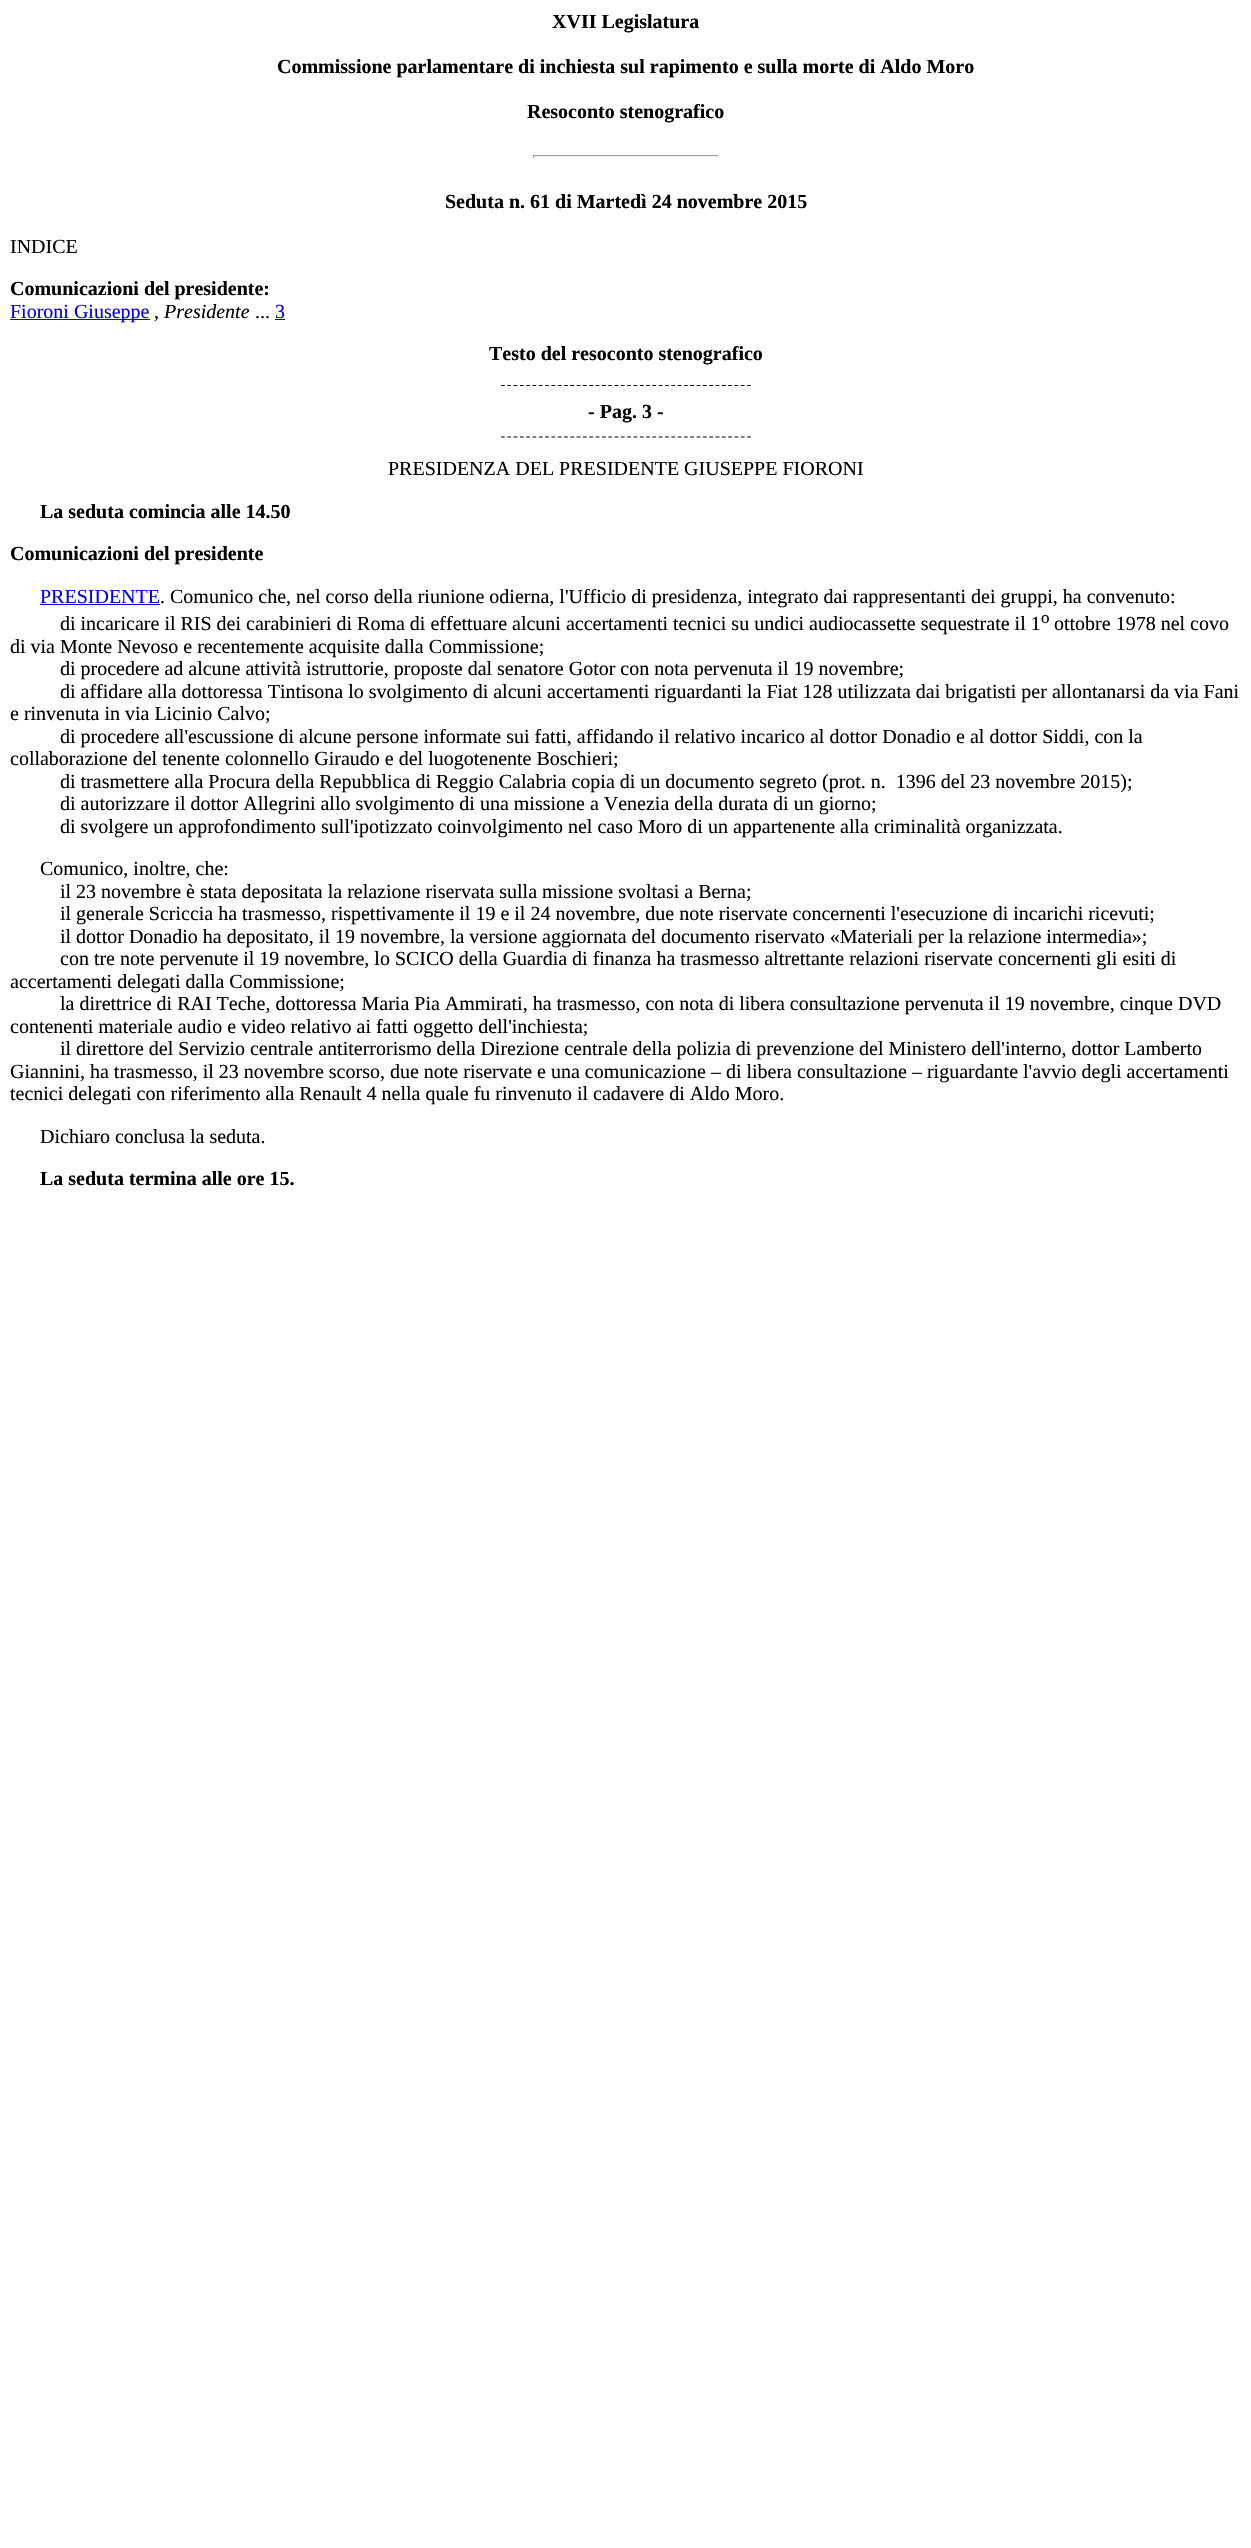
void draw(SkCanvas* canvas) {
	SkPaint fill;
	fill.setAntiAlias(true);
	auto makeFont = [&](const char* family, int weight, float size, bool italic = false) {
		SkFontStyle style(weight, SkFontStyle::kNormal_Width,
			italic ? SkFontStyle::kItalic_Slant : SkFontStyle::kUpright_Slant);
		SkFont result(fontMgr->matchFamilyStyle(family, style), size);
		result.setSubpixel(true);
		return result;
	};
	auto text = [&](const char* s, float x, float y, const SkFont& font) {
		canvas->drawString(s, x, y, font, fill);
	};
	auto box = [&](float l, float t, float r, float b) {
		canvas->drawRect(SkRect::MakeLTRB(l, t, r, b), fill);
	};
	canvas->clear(0xFFFFFFFF);
	fill.setColor(0xFF9F9F9F);
	box(533, 155, 719, 156);
	fill.setColor(0xFFEEEEEE);
	box(718, 155, 719, 158);
	box(533, 156, 719, 157);
	fill.setColor(0xFF9F9F9F);
	box(533, 155, 534, 158);
	fill.setColor(0xFF0000EE);
	box(10, 319, 150, 320);
	box(275, 319, 285, 320);
	fill.setStyle(SkPaint::kStroke_Style);
	fill.setStrokeWidth(1.2f);
	fill.setColor(0xFF000000);
	fill.setPathEffect(SkDashPathEffect::Make({{3.75f, 2.56f}}, 0));
	canvas->drawPath(SkPathBuilder().moveTo(501, 385.5f).lineTo(751, 385.5f).detach(), fill);
	fill.setPathEffect(nullptr);
	fill.setPathEffect(SkDashPathEffect::Make({{3.75f, 2.56f}}, 0));
	canvas->drawPath(SkPathBuilder().moveTo(501, 437).lineTo(751, 437).detach(), fill);
	fill.setPathEffect(nullptr);
	fill.setStyle(SkPaint::kFill_Style);
	fill.setColor(0xFF0000EE);
	box(40, 604, 160, 605);
	auto font1 = makeFont("Liberation Serif", 700, 20);
	fill.setColor(0xFF000000);
	text("XVII Legislatura", 552, 28, font1);
	text("Commissione parlamentare di inchiesta sul rapimento e sulla morte di Aldo Moro", 277, 73, font1);
	text("Resoconto stenografico", 527, 118, font1);
	text("Seduta n. 61 di Martedì 24 novembre 2015", 445, 208, font1);
	auto font2 = makeFont("Liberation Serif", 400, 20);
	text("INDICE", 10, 253, font2);
	text("Comunicazioni del presidente:", 10, 295, font1);
	fill.setColor(0xFF0000EE);
	text("Fioroni Giuseppe", 10, 318, font2);
	fill.setColor(0xFF000000);
	text(",", 154, 318, font2);
	auto font3 = makeFont("Liberation Serif", 400, 20, true);
	text("Presidente", 164, 318, font3);
	text("...", 255, 318, font2);
	fill.setColor(0xFF0000EE);
	text("3", 275, 318, font2);
	fill.setColor(0xFF000000);
	text("Testo del resoconto stenografico", 489, 360, font1);
	text("- Pag. 3 -", 588, 418, font1);
	text("PRESIDENZA DEL PRESIDENTE GIUSEPPE FIORONI", 388, 475, font2);
	text("La seduta comincia alle 14.50", 40, 518, font1);
	text("Comunicazioni del presidente", 10, 560, font1);
	fill.setColor(0xFF0000EE);
	text("PRESIDENTE", 40, 603, font2);
	fill.setColor(0xFF000000);
	text(". Comunico che, nel corso della riunione odierna, l'Ufficio di presidenza, integrato dai rappresentanti dei gruppi, ha convenuto:", 160, 603, font2);
	text("di incaricare il RIS dei carabinieri di Roma di effettuare alcuni accertamenti tecnici su undici audiocassette sequestrate il 1", 60, 630, font2);
	auto font4 = makeFont("Liberation Serif", 400, 17);
	text("o", 1041, 623, font4);
	text("ottobre 1978 nel covo", 1054, 630, font2);
	text("di via Monte Nevoso e recentemente acquisite dalla Commissione;", 10, 653, font2);
	text("di procedere ad alcune attività istruttorie, proposte dal senatore Gotor con nota pervenuta il 19 novembre;", 60, 675, font2);
	text("di affidare alla dottoressa Tintisona lo svolgimento di alcuni accertamenti riguardanti la Fiat 128 utilizzata dai brigatisti per allontanarsi da via Fani", 60, 698, font2);
	text("e rinvenuta in via Licinio Calvo;", 10, 720, font2);
	text("di procedere all'escussione di alcune persone informate sui fatti, affidando il relativo incarico al dottor Donadio e al dottor Siddi, con la", 60, 743, font2);
	text("collaborazione del tenente colonnello Giraudo e del luogotenente Boschieri;", 10, 765, font2);
	text("di trasmettere alla Procura della Repubblica di Reggio Calabria copia di un documento segreto (prot. n. 1396 del 23 novembre 2015);", 60, 788, font2);
	text("di autorizzare il dottor Allegrini allo svolgimento di una missione a Venezia della durata di un giorno;", 60, 810, font2);
	text("di svolgere un approfondimento sull'ipotizzato coinvolgimento nel caso Moro di un appartenente alla criminalità organizzata.", 60, 833, font2);
	text("Comunico, inoltre, che:", 40, 875, font2);
	text("il 23 novembre è stata depositata la relazione riservata sulla missione svoltasi a Berna;", 60, 898, font2);
	text("il generale Scriccia ha trasmesso, rispettivamente il 19 e il 24 novembre, due note riservate concernenti l'esecuzione di incarichi ricevuti;", 60, 920, font2);
	text("il dottor Donadio ha depositato, il 19 novembre, la versione aggiornata del documento riservato «Materiali per la relazione intermedia»;", 60, 943, font2);
	text("con tre note pervenute il 19 novembre, lo SCICO della Guardia di finanza ha trasmesso altrettante relazioni riservate concernenti gli esiti di", 60, 965, font2);
	text("accertamenti delegati dalla Commissione;", 10, 988, font2);
	text("la direttrice di RAI Teche, dottoressa Maria Pia Ammirati, ha trasmesso, con nota di libera consultazione pervenuta il 19 novembre, cinque DVD", 60, 1010, font2);
	text("contenenti materiale audio e video relativo ai fatti oggetto dell'inchiesta;", 10, 1033, font2);
	text("il direttore del Servizio centrale antiterrorismo della Direzione centrale della polizia di prevenzione del Ministero dell'interno, dottor Lamberto", 60, 1055, font2);
	text("Giannini, ha trasmesso, il 23 novembre scorso, due note riservate e una comunicazione – di libera consultazione – riguardante l'avvio degli accertamenti", 10, 1078, font2);
	text("tecnici delegati con riferimento alla Renault 4 nella quale fu rinvenuto il cadavere di Aldo Moro.", 10, 1100, font2);
	text("Dichiaro conclusa la seduta.", 40, 1143, font2);
	text("La seduta termina alle ore 15.", 40, 1185, font1);
}
